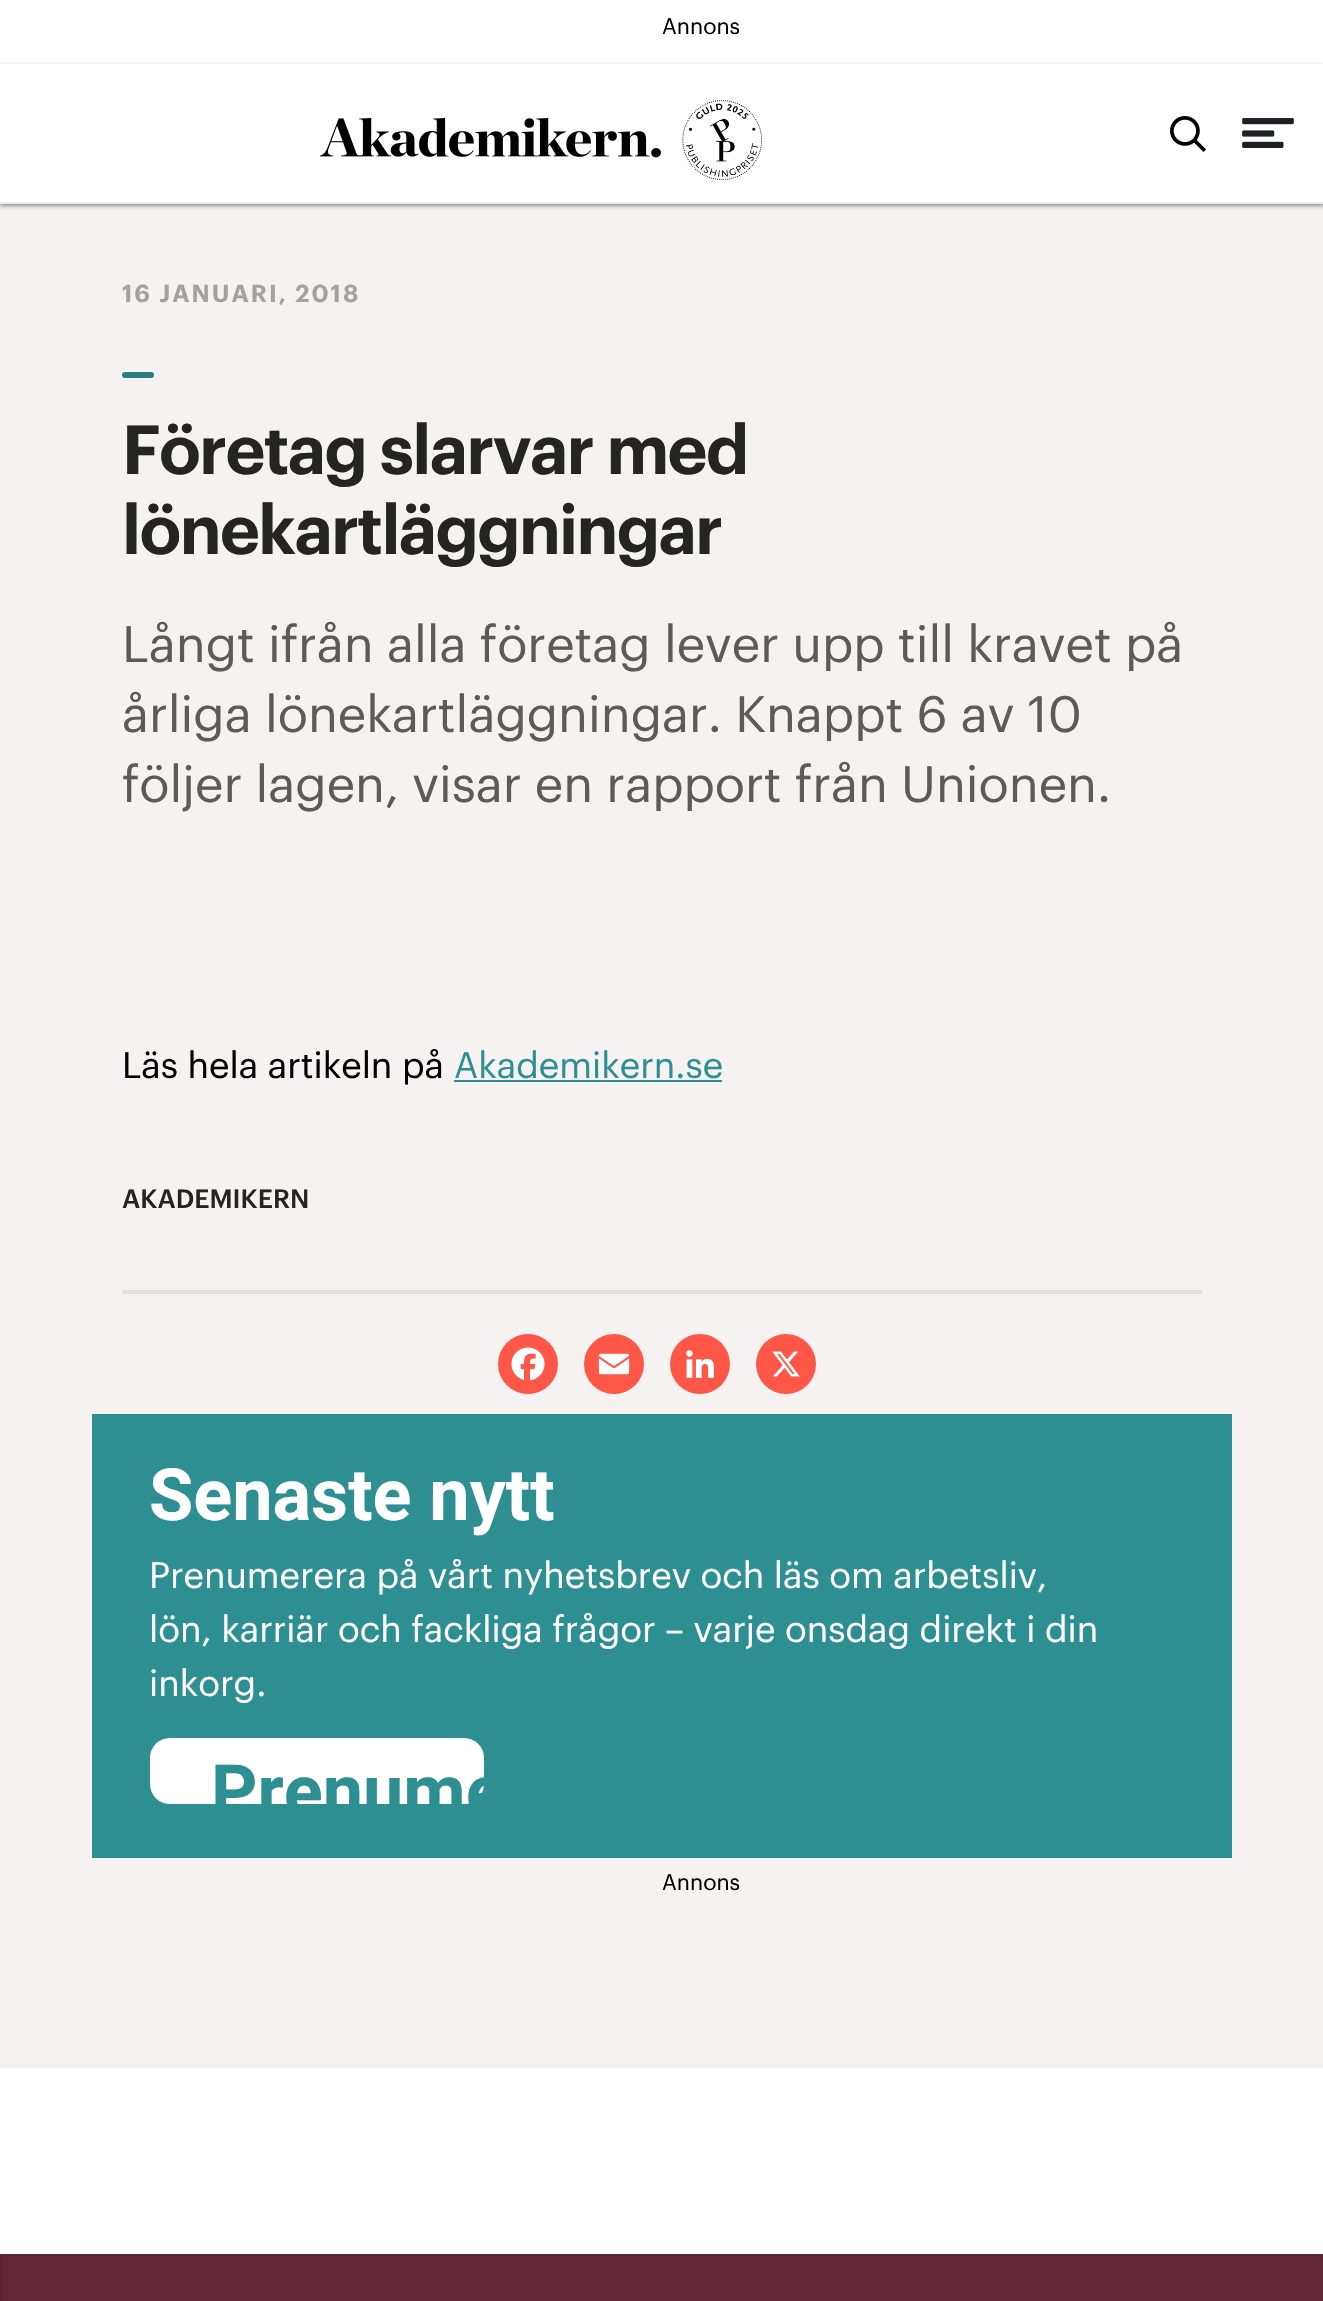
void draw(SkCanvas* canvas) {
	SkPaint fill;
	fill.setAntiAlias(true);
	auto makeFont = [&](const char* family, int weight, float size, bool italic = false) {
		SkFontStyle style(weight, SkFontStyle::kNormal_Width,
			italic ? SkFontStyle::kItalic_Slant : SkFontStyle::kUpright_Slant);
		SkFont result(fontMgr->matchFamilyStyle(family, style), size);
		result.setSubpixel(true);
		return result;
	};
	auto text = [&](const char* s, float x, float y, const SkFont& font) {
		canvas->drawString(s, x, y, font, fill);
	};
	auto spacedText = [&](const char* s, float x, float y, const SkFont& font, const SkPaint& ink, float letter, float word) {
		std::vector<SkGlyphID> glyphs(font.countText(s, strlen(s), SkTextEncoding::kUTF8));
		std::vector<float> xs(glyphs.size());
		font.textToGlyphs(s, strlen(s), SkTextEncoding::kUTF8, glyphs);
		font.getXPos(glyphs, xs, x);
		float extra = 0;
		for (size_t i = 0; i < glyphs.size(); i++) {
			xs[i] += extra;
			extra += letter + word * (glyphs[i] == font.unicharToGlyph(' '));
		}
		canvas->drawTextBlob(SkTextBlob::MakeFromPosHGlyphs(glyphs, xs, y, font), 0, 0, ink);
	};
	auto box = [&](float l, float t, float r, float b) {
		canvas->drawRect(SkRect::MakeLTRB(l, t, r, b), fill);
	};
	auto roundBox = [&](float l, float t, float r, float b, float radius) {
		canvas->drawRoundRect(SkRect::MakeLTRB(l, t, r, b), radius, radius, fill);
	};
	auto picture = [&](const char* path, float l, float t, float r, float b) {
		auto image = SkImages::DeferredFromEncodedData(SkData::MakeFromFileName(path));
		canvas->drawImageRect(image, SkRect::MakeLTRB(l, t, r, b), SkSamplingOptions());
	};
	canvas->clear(0xFFFFFFFF);
	fill.setColor(0xFFF5F2F1);
	box(0, 204, 1323, 2068);
	canvas->save();
	canvas->clipPath(SkPathBuilder(SkPathFillType::kEvenOdd).moveTo(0, 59).lineTo(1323, 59).lineTo(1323, 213).lineTo(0, 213).close().moveTo(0, 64).lineTo(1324, 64).lineTo(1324, 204).lineTo(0, 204).close().detach(), true);
	fill.setColor(0x66000000);
	fill.setMaskFilter(SkMaskFilter::MakeBlur(kNormal_SkBlurStyle, 2));
	canvas->drawRect(SkRect::MakeLTRB(0, 66, 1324, 206), fill);
	fill.setMaskFilter(nullptr);
	canvas->restore();
	fill.setColor(0xFFEAECEF);
	box(0, 202, 1323, 204);
	picture("image0.png", 320, 118, 661, 158);
	picture("image1.png", 682, 100, 762, 180);
	picture("image2.png", 1170, 116, 1206, 152);
	picture("image3.png", 1242, 118, 1294, 148);
	fill.setColor(0xFF2A7F84);
	roundBox(122, 372, 154, 378, 3);
	fill.setColor(0xFF2D8F92);
	box(454, 1080, 722, 1082);
	fill.setColor(0xFFE1E1E1);
	box(122, 1290, 1202, 1294);
	fill.setColor(0xFFFF5747);
	canvas->drawCircle(528, 1364, 30, fill);
	picture("image4.png", 511, 1347, 545, 1381);
	canvas->drawCircle(614, 1364, 30, fill);
	picture("image5.png", 598, 1353, 630, 1375);
	canvas->drawCircle(700, 1364, 30, fill);
	picture("image6.png", 686, 1350, 714, 1378);
	canvas->drawCircle(786, 1364, 30, fill);
	picture("image7.png", 772, 1351, 800, 1377);
	fill.setColor(0xFF2D8F92);
	box(92, 1414, 1232, 1858);
	fill.setColor(0xFFFFFFFF);
	roundBox(150, 1738, 484, 1804, 20);
	fill.setColor(0xFF67273B);
	box(0, 2254, 1323, 2301);
	fill.setColor(0xFF5A2234);
	canvas->drawPath(SkPathBuilder().moveTo(5, 2254).cubicTo(4, 2254, 2, 2254, 1, 2255).lineTo(3, 2257).lineTo(5, 2256).lineTo(1319, 2256).lineTo(1321, 2257).lineTo(1323, 2255).cubicTo(1322, 2254, 1320, 2254, 1319, 2254).close().detach(), fill);
	fill.setColor(0x1F000000);
	canvas->drawPath(SkPathBuilder().moveTo(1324, 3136).lineTo(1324, 2259).cubicTo(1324, 2258, 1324, 2256, 1323, 2255).lineTo(1321, 2257).lineTo(1322, 2259).lineTo(1322, 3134).close().detach(), fill);
	canvas->drawPath(SkPathBuilder().moveTo(0, 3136).lineTo(2, 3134).lineTo(2, 2259).lineTo(3, 2257).lineTo(1, 2255).cubicTo(0, 2256, 0, 2258, 0, 2259).close().detach(), fill);
	fill.setColor(0x08000000);
	box(2, 2256, 1322, 2301);
	auto font1 = makeFont("Graphik", 400, 22);
	fill.setColor(0xFF000000);
	text("Annons", 662, 34, font1);
	auto font2 = makeFont("Graphik", 600, 24);
	fill.setColor(0xFFA4A2A1);
	spacedText("16 JANUARI, 2018", 122, 302, font2, fill, 2, 0);
	auto font3 = makeFont("Graphik", 600, 68);
	fill.setColor(0xFF242423);
	spacedText("Företag slarvar med", 122, 474, font3, fill, -1.6f, 0);
	spacedText("lönekartläggningar", 122, 554, font3, fill, -1.6f, 0);
	auto font4 = makeFont("Graphik", 400, 50);
	fill.setColor(0xFF5C5B5A);
	text("Långt ifrån alla företag lever upp till kravet på", 122, 662, font4);
	text("årliga lönekartläggningar. Knappt 6 av 10", 122, 732, font4);
	text("följer lagen, visar en rapport från Unionen.", 122, 802, font4);
	auto font5 = makeFont("Graphik", 400, 36);
	fill.setColor(0xFF000000);
	text("Läs hela artikeln på", 122, 1078, font5);
	fill.setColor(0xFF2D8F92);
	text("Akademikern.se", 454, 1078, font5);
	auto font6 = makeFont("Graphik", 500, 26);
	fill.setColor(0xFF242423);
	text("AKADEMIKERN", 122, 1208, font6);
	auto font7 = makeFont("Roboto", 700, 72);
	fill.setColor(0xFFFFFFFF);
	text("Senaste nytt", 149, 1520, font7);
	text("Prenumerera på vårt nyhetsbrev och läs om arbetsliv,", 149, 1588, font5);
	text("lön, karriär och fackliga frågor – varje onsdag direkt i din", 149, 1642, font5);
	text("inkorg.", 149, 1696, font5);
	fill.setColor(0xFF2D8F92);
	text("Prenume", 211, 1816, font7);
	fill.setColor(0xFF000000);
	text("Annons", 662, 1890, font1);
}
